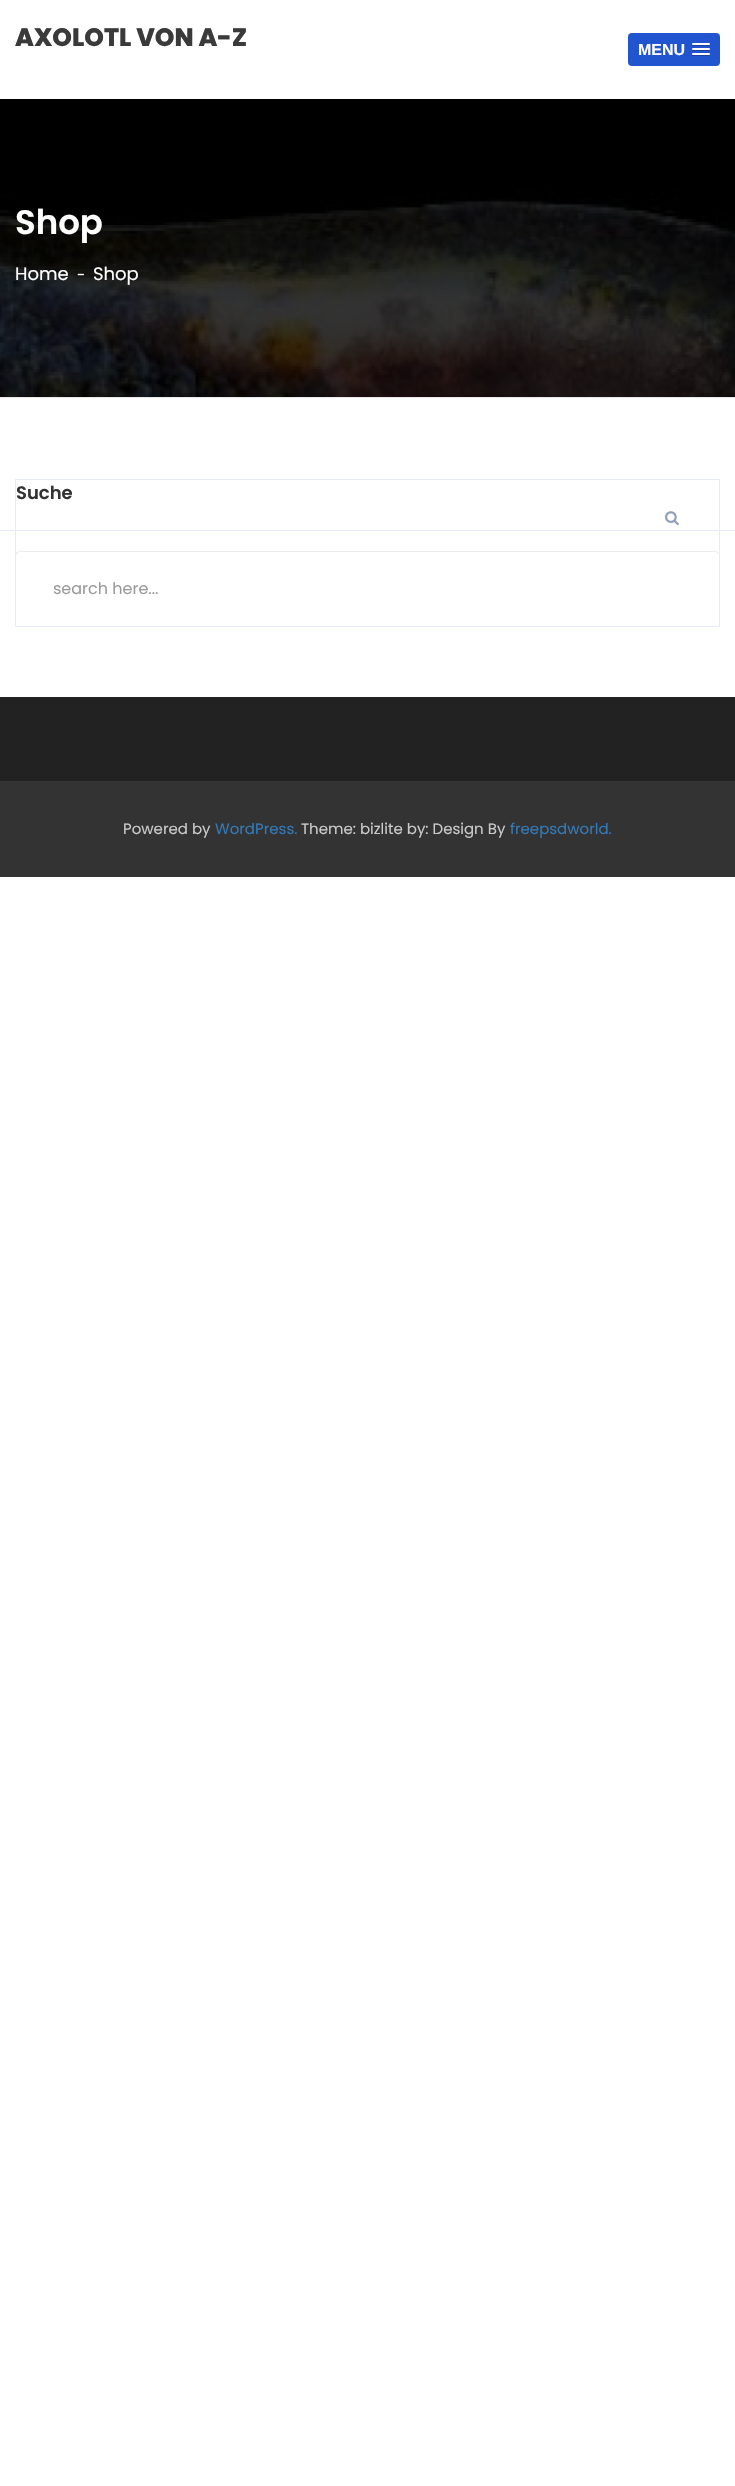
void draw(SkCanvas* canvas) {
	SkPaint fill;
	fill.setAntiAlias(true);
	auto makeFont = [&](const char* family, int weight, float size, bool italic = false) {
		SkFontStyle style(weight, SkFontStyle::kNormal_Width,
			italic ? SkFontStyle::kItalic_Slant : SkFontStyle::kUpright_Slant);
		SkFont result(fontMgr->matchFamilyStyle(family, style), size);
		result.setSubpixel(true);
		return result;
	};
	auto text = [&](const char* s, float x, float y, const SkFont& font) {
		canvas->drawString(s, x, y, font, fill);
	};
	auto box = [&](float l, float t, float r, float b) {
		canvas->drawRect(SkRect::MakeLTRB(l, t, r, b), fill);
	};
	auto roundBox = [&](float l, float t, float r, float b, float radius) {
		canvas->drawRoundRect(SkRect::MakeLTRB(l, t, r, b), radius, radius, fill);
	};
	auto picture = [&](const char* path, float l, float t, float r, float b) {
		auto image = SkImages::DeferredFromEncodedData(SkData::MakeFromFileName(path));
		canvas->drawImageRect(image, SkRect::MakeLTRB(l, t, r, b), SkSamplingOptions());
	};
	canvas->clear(0xFFFFFFFF);
	fill.setColor(0xFF2154CF);
	roundBox(628, 33, 720, 66, 4);
	fill.setColor(0xFF193F9B);
	canvas->drawPath(SkPathBuilder().moveTo(692, 44.5f).cubicTo(691, 46.5f, 695.5f, 46, 695.5f, 46).lineTo(706.5f, 46).cubicTo(706.5f, 46, 711, 46.5f, 710, 44.5f).cubicTo(709, 45.5f, 702.5f, 45, 701, 45).cubicTo(699.5f, 45, 693, 45.5f, 692, 44.5f).close().detach(), fill);
	fill.setColor(0xFFFFFFFF);
	roundBox(692, 43, 710, 45, 1);
	fill.setColor(0xFF193F9B);
	canvas->drawPath(SkPathBuilder().moveTo(692, 49.5f).cubicTo(691, 51.5f, 695.5f, 51, 695.5f, 51).lineTo(706.5f, 51).cubicTo(706.5f, 51, 711, 51.5f, 710, 49.5f).cubicTo(709, 50.5f, 702.5f, 50, 701, 50).cubicTo(699.5f, 50, 693, 50.5f, 692, 49.5f).close().detach(), fill);
	fill.setColor(0xFFFFFFFF);
	roundBox(692, 48, 710, 50, 1);
	fill.setColor(0xFF193F9B);
	canvas->drawPath(SkPathBuilder().moveTo(692, 54.5f).cubicTo(691, 56.5f, 695.5f, 56, 695.5f, 56).lineTo(706.5f, 56).cubicTo(706.5f, 56, 711, 56.5f, 710, 54.5f).cubicTo(709, 55.5f, 702.5f, 55, 701, 55).cubicTo(699.5f, 55, 693, 55.5f, 692, 54.5f).close().detach(), fill);
	fill.setColor(0xFFFFFFFF);
	roundBox(692, 53, 710, 55, 1);
	picture("image0.png", 0, 99, 735, 397);
	fill.setColor(0xFFE8E8E8);
	box(0, 397, 735, 398);
	fill.setStyle(SkPaint::kStroke_Style);
	fill.setStrokeWidth(1);
	fill.setColor(0xFFE7EAF7);
	canvas->drawRect(SkRect::MakeLTRB(15.5f, 479.5f, 719.5f, 626.5f), fill);
	fill.setStyle(SkPaint::kFill_Style);
	box(0, 530, 735, 531);
	picture("image1.png", 665, 511, 679, 526);
	fill.setColor(0xFFECECEC);
	canvas->drawPath(SkPathBuilder().moveTo(20, 552).lineTo(715, 552).cubicTo(717, 552, 719, 554, 719, 556).cubicTo(719, 553, 718, 551, 715, 551).lineTo(20, 551).lineTo(17, 552).lineTo(16, 553).lineTo(16, 556).cubicTo(16, 554, 18, 552, 20, 552).close().detach(), fill);
	fill.setColor(0xFF222222);
	box(0, 697, 735, 781);
	fill.setColor(0xFF333333);
	box(0, 781, 735, 877);
	auto font1 = makeFont("Poppins", 800, 25);
	fill.setColor(0xFF3A3A3A);
	text("AXOLOTL VON A-Z", 15, 46, font1);
	auto font2 = makeFont("Liberation Sans", 700, 16);
	fill.setColor(0xFFFFFFFF);
	text("MENU", 638, 55, font2);
	auto font3 = makeFont("Poppins", 600, 34);
	text("Shop", 15, 234, font3);
	auto font4 = makeFont("Poppins", 400, 18);
	text("Home", 15, 280, font4);
	auto font5 = makeFont("Poppins", 400, 15);
	text("-", 77, 280, font5);
	text("Shop", 93, 280, font4);
	auto font6 = makeFont("Poppins", 600, 18);
	fill.setColor(0xFF333333);
	text("Suche", 16, 499, font6);
	auto font7 = makeFont("Poppins", 400, 16);
	fill.setColor(0xFF999999);
	text("search here...", 53, 594, font7);
	fill.setColor(0xFFCACACA);
	text("Powered by", 123, 834, font5);
	fill.setColor(0xFF337AB7);
	text("WordPress.", 215, 834, font5);
	fill.setColor(0xFFCACACA);
	text("Theme: bizlite by: Design By", 301, 834, font5);
	fill.setColor(0xFF337AB7);
	text("freepsdworld.", 510, 834, font5);
}
